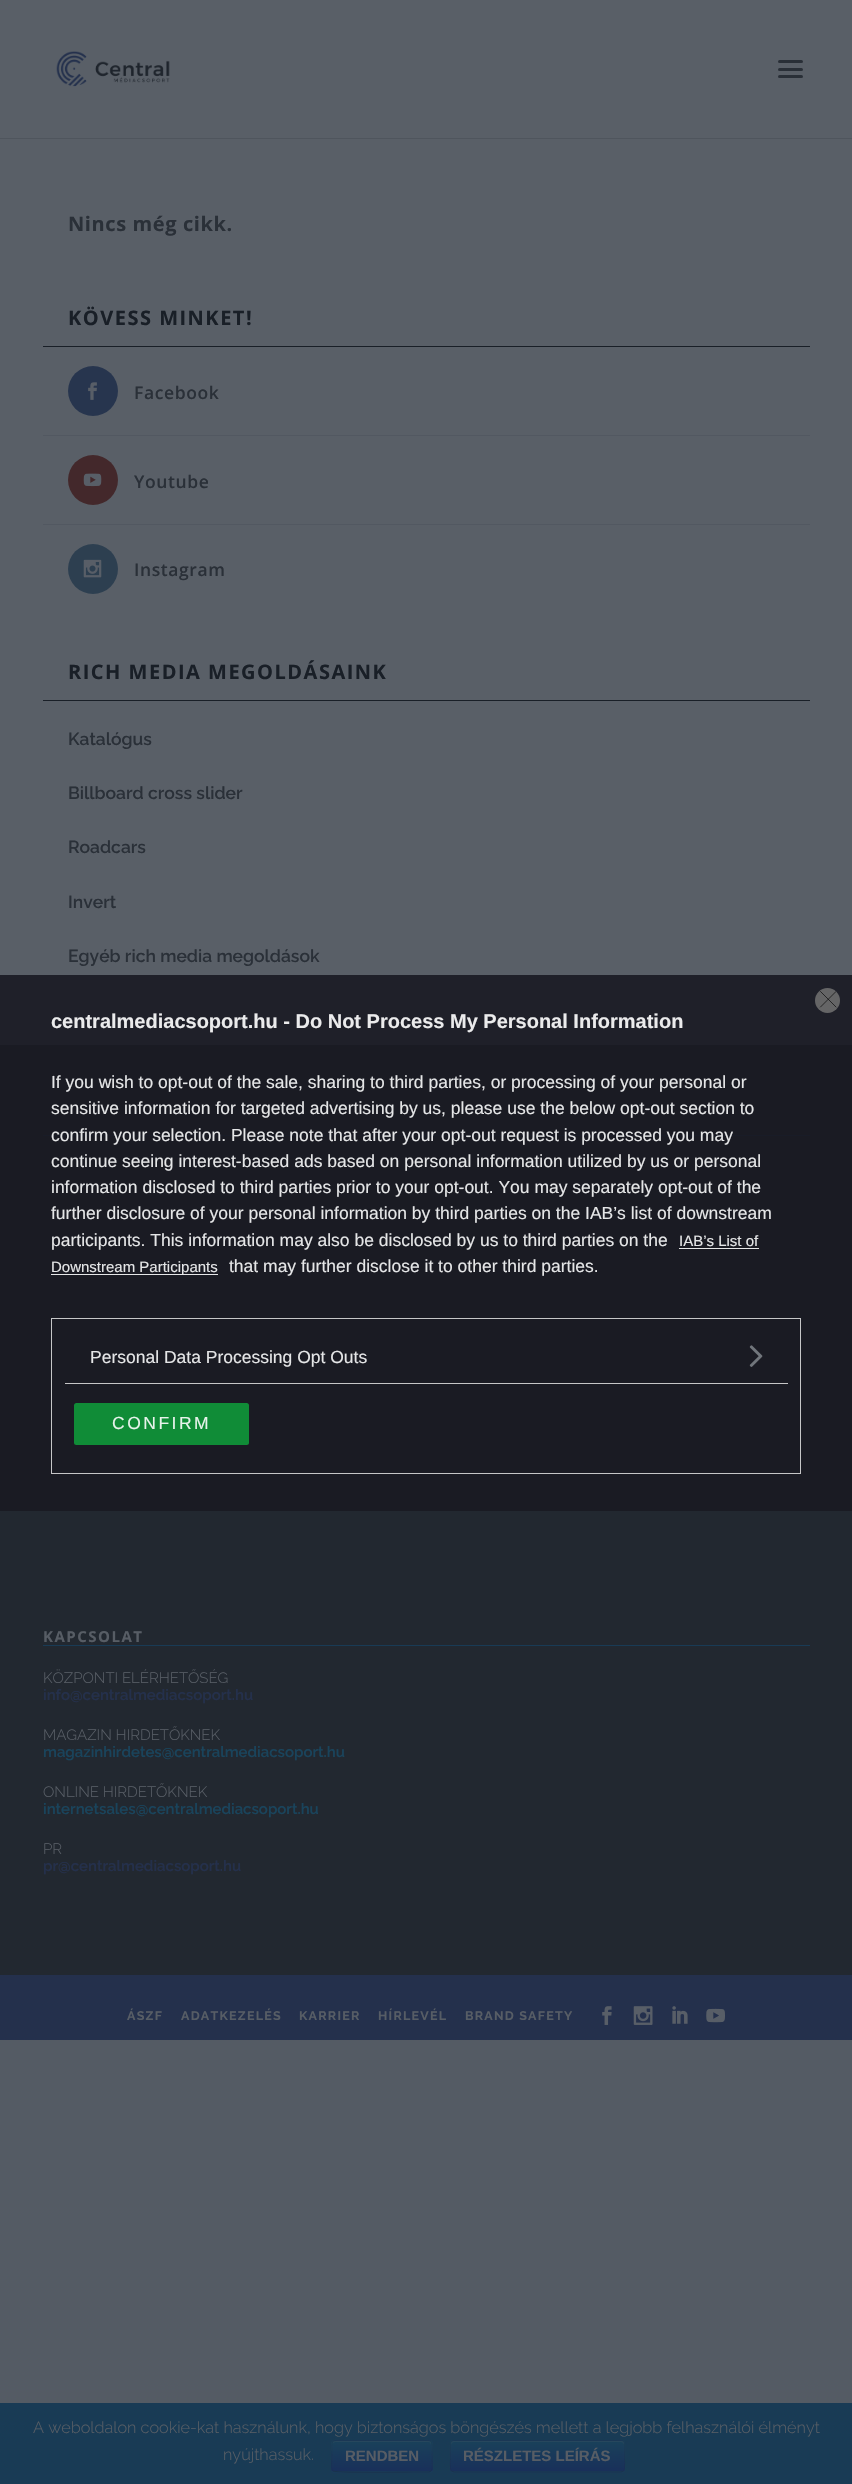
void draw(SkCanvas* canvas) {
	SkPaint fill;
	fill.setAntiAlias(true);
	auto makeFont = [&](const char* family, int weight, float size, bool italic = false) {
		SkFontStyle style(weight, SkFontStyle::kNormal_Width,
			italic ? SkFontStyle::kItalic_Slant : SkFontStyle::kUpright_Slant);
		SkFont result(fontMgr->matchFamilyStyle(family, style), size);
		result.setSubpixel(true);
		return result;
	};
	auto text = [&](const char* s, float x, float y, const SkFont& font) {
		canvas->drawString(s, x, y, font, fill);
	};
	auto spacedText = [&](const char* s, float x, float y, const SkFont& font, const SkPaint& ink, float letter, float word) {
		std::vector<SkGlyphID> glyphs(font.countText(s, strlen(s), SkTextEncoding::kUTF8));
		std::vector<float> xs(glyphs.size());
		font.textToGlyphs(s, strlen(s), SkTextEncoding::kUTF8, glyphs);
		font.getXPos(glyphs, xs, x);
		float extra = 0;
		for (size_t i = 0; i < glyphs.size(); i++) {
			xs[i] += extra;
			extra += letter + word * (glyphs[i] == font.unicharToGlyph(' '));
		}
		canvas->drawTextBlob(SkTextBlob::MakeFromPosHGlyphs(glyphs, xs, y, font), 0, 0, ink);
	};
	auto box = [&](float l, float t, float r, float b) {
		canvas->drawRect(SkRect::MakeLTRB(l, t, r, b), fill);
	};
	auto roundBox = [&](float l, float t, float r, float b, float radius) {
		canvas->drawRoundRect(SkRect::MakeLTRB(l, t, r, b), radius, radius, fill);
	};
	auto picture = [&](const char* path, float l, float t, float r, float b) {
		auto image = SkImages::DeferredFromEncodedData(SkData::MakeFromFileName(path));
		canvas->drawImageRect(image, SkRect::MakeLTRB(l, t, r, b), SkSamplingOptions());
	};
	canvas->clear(0xFF545B64);
	fill.setColor(0xFF595F67);
	box(0, 0, 852, 975);
	fill.setColor(0xFF1F2029);
	box(0, 975, 852, 1045);
	fill.setColor(0xFF4F555D);
	box(0, 138, 852, 139);
	picture("image0.png", 56, 51, 170, 87);
	fill.setColor(0xFF292F37);
	roundBox(778, 60, 803, 63, 1.5f);
	roundBox(778, 68, 803, 71, 1.5f);
	roundBox(778, 75, 803, 78, 1.5f);
	fill.setColor(0xFF191F27);
	box(43, 346, 810, 347);
	fill.setColor(0xFF525861);
	box(43, 435, 810, 436);
	fill.setColor(0xFF27354E);
	canvas->drawCircle(93, 391, 25, fill);
	picture("image1.png", 88, 382, 97, 400);
	fill.setColor(0xFF525861);
	box(43, 524, 810, 525);
	fill.setColor(0xFF43282B);
	canvas->drawCircle(93, 480, 25, fill);
	picture("image2.png", 83, 473, 102, 487);
	fill.setColor(0xFF2D3F50);
	canvas->drawCircle(93, 569, 25, fill);
	picture("image3.png", 83, 559, 102, 578);
	fill.setColor(0xFF191F27);
	box(43, 700, 810, 701);
	fill.setColor(0xFF222830);
	box(0, 1511, 852, 1975);
	fill.setColor(0xFF1A1B23);
	box(0, 1045, 852, 1511);
	fill.setColor(0xFF191C27);
	box(43, 1135, 810, 1136);
	fill.setColor(0xFF193B55);
	box(43, 1645, 810, 1646);
	fill.setColor(0xFF24304C);
	box(0, 1975, 852, 2040);
	picture("image4.png", 602, 2006, 612, 2025);
	picture("image5.png", 633, 2006, 653, 2025);
	picture("image6.png", 672, 2006, 688, 2024);
	picture("image7.png", 706, 2008, 725, 2023);
	fill.setColor(0xFF656566);
	canvas->drawCircle(827.5f, 1000.5f, 12.5f, fill);
	canvas->save();
	canvas->clipPath(SkPathBuilder().moveTo(827.5f, 988).cubicTo(834.5f, 988, 840, 993.5f, 840, 1000.5f).cubicTo(840, 1007.5f, 834.5f, 1013, 827.5f, 1013).cubicTo(820.5f, 1013, 815, 1007.5f, 815, 1000.5f).cubicTo(815, 993.5f, 820.5f, 988, 827.5f, 988).close().detach(), true);
	fill.setStyle(SkPaint::kStroke_Style);
	fill.setStrokeWidth(0.7f);
	fill.setStrokeCap(SkPaint::kRound_Cap);
	fill.setStrokeJoin(SkPaint::kRound_Join);
	fill.setColor(0xFF09090A);
	canvas->drawPath(SkPathBuilder().moveTo(820.5f, 991.5f).lineTo(836, 1007).moveTo(836, 991.5f).lineTo(820.5f, 1007).detach(), fill);
	canvas->restore();
	fill.setStyle(SkPaint::kFill_Style);
	fill.setColor(0xFFE5E6E7);
	box(679, 1248, 759, 1249);
	box(51, 1274, 218, 1275);
	fill.setStyle(SkPaint::kStroke_Style);
	fill.setStrokeWidth(1);
	fill.setStrokeCap(SkPaint::kButt_Cap);
	fill.setStrokeJoin(SkPaint::kMiter_Join);
	fill.setColor(0xE6D8D8D8);
	canvas->drawRect(SkRect::MakeLTRB(51.5f, 1318.5f, 800.5f, 1473.5f), fill);
	fill.setStyle(SkPaint::kFill_Style);
	box(65, 1383, 788, 1384);
	picture("image8.png", 749, 1345, 763, 1367);
	fill.setColor(0xE60E9839);
	roundBox(74, 1403, 249, 1445, 2.5f);
	fill.setColor(0xFF193B55);
	box(0, 2403, 852, 2484);
	fill.setColor(0xFF193A5A);
	roundBox(331, 2440, 433, 2473, 4);
	canvas->save();
	canvas->clipPath(SkPathBuilder().moveTo(335, 2440).lineTo(429, 2440).cubicTo(431, 2440, 433, 2442, 433, 2444).lineTo(433, 2469).cubicTo(433, 2471, 431, 2473, 429, 2473).lineTo(335, 2473).cubicTo(333, 2473, 331, 2471, 331, 2469).lineTo(331, 2444).cubicTo(331, 2442, 333, 2440, 335, 2440).close().detach(), true);
	{
		const SkColor colors[] = {0xFF19415A, 0xFF19305A};
		const float stops[] = {0, 1};
		const SkPoint ends[] = {{382, 2441}, {382, 2471}};
		fill.setShader(SkGradientShader::MakeLinear(ends, colors, stops, 2, SkTileMode::kClamp));
		fill.setAlpha(255);
	}
	box(331, 2441, 433, 2471);
	canvas->restore();
	fill.setShader(nullptr);
	fill.setColor(0xFF26475D);
	canvas->drawPath(SkPathBuilder().moveTo(335, 2442).lineTo(429, 2442).cubicTo(430, 2442, 431, 2444, 431, 2445).lineTo(431, 2444).cubicTo(431, 2442, 430, 2441, 428, 2441).lineTo(336, 2441).cubicTo(334, 2441, 333, 2442, 333, 2443).close().detach(), fill);
	fill.setStyle(SkPaint::kStroke_Style);
	fill.setStrokeWidth(1.2f);
	fill.setColor(0xFF19334D);
	canvas->drawPath(SkPathBuilder().moveTo(431, 2471).lineTo(429, 2472).lineTo(413, 2472).cubicTo(404.5f, 2472, 335, 2473, 333, 2471).detach(), fill);
	fill.setColor(0x1A191F27);
	canvas->drawPath(SkPathBuilder().moveTo(333, 2471).cubicTo(330.5f, 2469, 332, 2459, 332, 2456).cubicTo(332, 2437, 329, 2440.5f, 350.5f, 2440.5f).lineTo(413, 2440.5f).cubicTo(436.5f, 2440.5f, 432, 2437, 432, 2460.5f).cubicTo(432, 2463, 433, 2469, 431, 2471).detach(), fill);
	fill.setStyle(SkPaint::kFill_Style);
	fill.setColor(0xFF193A5A);
	roundBox(450, 2440, 625, 2473, 4);
	canvas->save();
	canvas->clipPath(SkPathBuilder().moveTo(454, 2440).lineTo(621, 2440).cubicTo(623, 2440, 625, 2442, 625, 2444).lineTo(625, 2469).cubicTo(625, 2471, 623, 2473, 621, 2473).lineTo(454, 2473).cubicTo(452, 2473, 450, 2471, 450, 2469).lineTo(450, 2444).cubicTo(450, 2442, 452, 2440, 454, 2440).close().detach(), true);
	{
		const SkColor colors[] = {0xFF19415A, 0xFF19305A};
		const float stops[] = {0, 1};
		const SkPoint ends[] = {{538, 2441}, {538, 2471}};
		fill.setShader(SkGradientShader::MakeLinear(ends, colors, stops, 2, SkTileMode::kClamp));
		fill.setAlpha(255);
	}
	box(450, 2441, 625, 2471);
	canvas->restore();
	fill.setShader(nullptr);
	fill.setColor(0xFF26475D);
	canvas->drawPath(SkPathBuilder().moveTo(454, 2442).lineTo(621, 2442).cubicTo(623, 2442, 624, 2444, 624, 2445).lineTo(624, 2444).cubicTo(624, 2442, 623, 2441, 622, 2441).lineTo(454, 2441).cubicTo(452, 2441, 451, 2442, 451, 2444).lineTo(451, 2445).cubicTo(451, 2444, 452, 2442, 454, 2442).close().detach(), fill);
	fill.setStyle(SkPaint::kStroke_Style);
	fill.setColor(0xFF19334D);
	canvas->drawPath(SkPathBuilder().moveTo(623.5f, 2471).lineTo(621, 2472).lineTo(454, 2472).lineTo(451.5f, 2471).detach(), fill);
	fill.setColor(0x1A191F27);
	canvas->drawPath(SkPathBuilder().moveTo(451.5f, 2471).cubicTo(449.5f, 2469, 450.5f, 2459, 450.5f, 2456).lineTo(450.5f, 2448).cubicTo(450.5f, 2445.5f, 450, 2440.5f, 454, 2440.5f).lineTo(621, 2440.5f).cubicTo(625, 2440.5f, 624.5f, 2445.5f, 624.5f, 2448).lineTo(624.5f, 2456).cubicTo(624.5f, 2459, 625.5f, 2469, 623.5f, 2471).detach(), fill);
	auto font1 = makeFont("Open Sans", 700, 20);
	fill.setStyle(SkPaint::kFill_Style);
	fill.setColor(0xFF2A3038);
	spacedText("Nincs még cikk.", 68, 231, font1, fill, 0.6f, 0);
	fill.setColor(0xFF191F27);
	spacedText("KÖVESS MINKET!", 68, 325, font1, fill, 1.5f, 0);
	auto font2 = makeFont("Open Sans", 600, 17.5f);
	fill.setColor(0xFF2A3038);
	spacedText("Facebook", 134, 399, font2, fill, 0.6f, 0);
	spacedText("Youtube", 134, 488, font2, fill, 0.6f, 0);
	spacedText("Instagram", 134, 576, font2, fill, 0.6f, 0);
	fill.setColor(0xFF191F27);
	spacedText("RICH MEDIA MEGOLDÁSAINK", 68, 679, font1, fill, 1.5f, 0);
	auto font3 = makeFont("Raleway", 100, 17.5f);
	fill.setColor(0xFF2A3038);
	text("Katalógus", 68, 745, font3);
	text("Billboard cross slider", 68, 799, font3);
	text("Roadcars", 68, 853, font3);
	text("Invert", 68, 908, font3);
	text("Egyéb rich media megoldások", 68, 962, font3);
	auto font4 = makeFont("Open Sans", 700, 15);
	fill.setColor(0xFF575D65);
	spacedText("KAPCSOLAT", 43, 1642, font4, fill, 1.5f, 0);
	auto font5 = makeFont("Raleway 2", 100, 15);
	text("KÖZPONTI ELÉRHETŐSÉG", 43, 1683, font5);
	auto font6 = makeFont("Raleway", 100, 15);
	fill.setColor(0xFF24304C);
	text("info@centralmediacsoport.hu", 43, 1700, font6);
	fill.setColor(0xFF575D65);
	text("MAGAZIN HIRDETŐKNEK", 43, 1740, font5);
	fill.setColor(0xFF19445C);
	text("magazinhirdetes@centralmediacsoport.hu", 43, 1757, font6);
	fill.setColor(0xFF575D65);
	text("ONLINE HIRDETŐKNEK", 43, 1797, font5);
	fill.setColor(0xFF19445C);
	text("internetsales@centralmediacsoport.hu", 43, 1814, font6);
	fill.setColor(0xFF575D65);
	text("PR", 43, 1854, font5);
	fill.setColor(0xFF24304C);
	text("pr@centralmediacsoport.hu", 43, 1871, font6);
	auto font7 = makeFont("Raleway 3", 100, 12.5f);
	fill.setColor(0xFF575D65);
	spacedText("ÁSZF", 127, 2020, font7, fill, 1.25f, 0);
	spacedText("ADATKEZELÉS", 181, 2020, font7, fill, 1.25f, 0);
	spacedText("KARRIER", 299, 2020, font7, fill, 1.25f, 0);
	spacedText("HÍRLEVÉL", 378, 2020, font7, fill, 1.25f, 0);
	spacedText("BRAND SAFETY", 465, 2020, font7, fill, 1.25f, 0);
	auto font8 = makeFont("Liberation Sans", 700, 20);
	fill.setColor(0xFFEBEBEC);
	text("centralmediacsoport.hu - Do Not Process My Personal Information", 51, 1028, font8);
	auto font9 = makeFont("Liberation Sans", 400, 17.5f);
	fill.setColor(0xFFE5E6E7);
	text("If you wish to opt-out of the sale, sharing to third parties, or processing of your personal or", 51, 1088, font9);
	text("sensitive information for targeted advertising by us, please use the below opt-out section to", 51, 1114, font9);
	text("confirm your selection. Please note that after your opt-out request is processed you may", 51, 1141, font9);
	text("continue seeing interest-based ads based on personal information utilized by us or personal", 51, 1167, font9);
	text("information disclosed to third parties prior to your opt-out. You may separately opt-out of the", 51, 1193, font9);
	text("further disclosure of your personal information by third parties on the IAB’s list of downstream", 51, 1219, font9);
	text("participants. This information may also be disclosed by us to third parties on the", 51, 1246, font9);
	auto font10 = makeFont("Liberation Sans", 400, 15);
	text("IAB’s List of", 679, 1246, font10);
	text("Downstream Participants", 51, 1272, font10);
	text("that may further disclose it to other third parties.", 229, 1272, font9);
	text("Personal Data Processing Opt Outs", 90, 1363, font9);
	fill.setColor(0xFFE7F3EB);
	spacedText("CONFIRM", 112, 1429, font9, fill, 2.5f, 0);
	auto font11 = makeFont("Raleway 2", 100, 16.25f);
	fill.setColor(0xFF575D65);
	text("A weboldalon cookie-kat használunk, hogy biztonságos böngészés mellett a legjobb felhasználói élményt", 33, 2433, font11);
	text("nyújthassuk.", 223, 2460, font11);
	auto font12 = makeFont("Liberation Sans", 700, 15);
	text("RENDBEN", 345, 2461, font12);
	text("RÉSZLETES LEÍRÁS", 463, 2461, font12);
}
